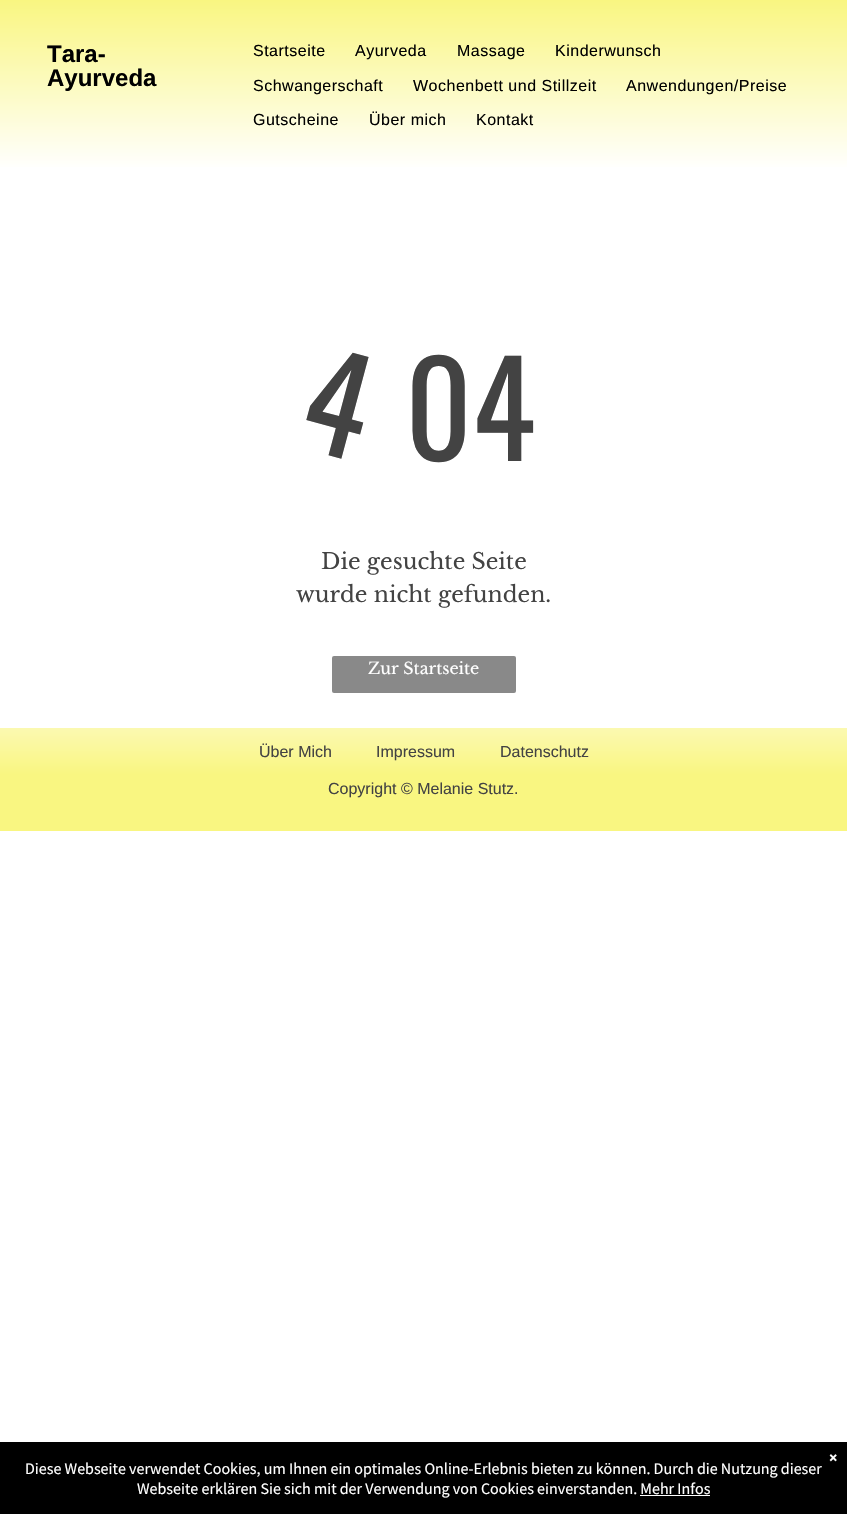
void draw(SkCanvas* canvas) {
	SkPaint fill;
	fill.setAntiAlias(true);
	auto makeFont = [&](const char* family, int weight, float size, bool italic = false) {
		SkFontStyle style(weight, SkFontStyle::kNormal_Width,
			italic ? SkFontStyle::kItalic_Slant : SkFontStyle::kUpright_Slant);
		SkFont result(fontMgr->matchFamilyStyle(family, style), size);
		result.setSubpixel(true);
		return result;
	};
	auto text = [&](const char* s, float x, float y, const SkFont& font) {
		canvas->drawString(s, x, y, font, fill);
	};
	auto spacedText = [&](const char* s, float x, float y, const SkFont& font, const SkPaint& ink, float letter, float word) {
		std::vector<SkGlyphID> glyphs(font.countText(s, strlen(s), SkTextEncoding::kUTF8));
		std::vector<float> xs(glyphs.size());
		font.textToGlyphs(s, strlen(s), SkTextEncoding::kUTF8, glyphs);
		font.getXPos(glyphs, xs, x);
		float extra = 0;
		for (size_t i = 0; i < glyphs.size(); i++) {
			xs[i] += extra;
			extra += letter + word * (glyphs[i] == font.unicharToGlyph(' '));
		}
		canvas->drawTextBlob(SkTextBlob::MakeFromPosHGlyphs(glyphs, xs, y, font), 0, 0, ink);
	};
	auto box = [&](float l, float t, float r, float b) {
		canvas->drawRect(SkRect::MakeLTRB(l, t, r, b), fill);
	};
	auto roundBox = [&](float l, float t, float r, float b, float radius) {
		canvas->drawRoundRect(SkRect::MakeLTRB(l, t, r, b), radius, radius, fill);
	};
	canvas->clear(0xFFFFFFFF);
	{
		const SkColor colors[] = {0xFFFFFFFF, 0xFFF9F681};
		const float stops[] = {0, 1};
		const SkPoint ends[] = {{424, 170}, {424, 0}};
		fill.setShader(SkGradientShader::MakeLinear(ends, colors, stops, 2, SkTileMode::kClamp));
		fill.setAlpha(255);
	}
	box(0, 0, 847, 167);
	fill.setShader(nullptr);
	fill.setColor(0xFF898989);
	roundBox(332, 656, 516, 693, 2);
	fill.setColor(0xFFF9F681);
	box(0, 774, 847, 831);
	{
		const SkColor colors[] = {0xFFF9F681, 0xFFFBF9B1};
		const float stops[] = {0, 1};
		const SkPoint ends[] = {{424, 774}, {424, 728}};
		fill.setShader(SkGradientShader::MakeLinear(ends, colors, stops, 2, SkTileMode::kClamp));
		fill.setAlpha(255);
	}
	box(0, 728, 847, 774);
	fill.setShader(nullptr);
	fill.setColor(0xFF000000);
	box(0, 1442, 847, 1514);
	fill.setColor(0xFFFFFFFF);
	box(640, 1495, 710, 1496);
	auto font1 = makeFont("Liberation Sans", 700, 24);
	fill.setColor(0xFF000000);
	text("Tara-", 47, 62, font1);
	text("Ayurveda", 47, 86, font1);
	auto font2 = makeFont("Liberation Sans", 400, 16);
	spacedText("Startseite", 253, 56, font2, fill, 0.5f, 0);
	spacedText("Ayurveda", 355, 56, font2, fill, 0.5f, 0);
	spacedText("Massage", 457, 56, font2, fill, 0.5f, 0);
	spacedText("Kinderwunsch", 555, 56, font2, fill, 0.5f, 0);
	spacedText("Schwangerschaft", 253, 91, font2, fill, 0.5f, 0);
	spacedText("Wochenbett und Stillzeit", 413, 91, font2, fill, 0.5f, 0);
	spacedText("Anwendungen/Preise", 626, 91, font2, fill, 0.5f, 0);
	spacedText("Gutscheine", 253, 125, font2, fill, 0.5f, 0);
	spacedText("Über mich", 369, 125, font2, fill, 0.5f, 0);
	spacedText("Kontakt", 476, 125, font2, fill, 0.5f, 0);
	auto font3 = makeFont("Oswald", 400, 130);
	fill.setColor(0xFF434343);
	canvas->save();
	canvas->rotate(15, 294, 446);
	text("4", 294, 446, font3);
	canvas->restore();
	text("04", 405, 461, font3);
	auto font4 = makeFont("Libre Baskerville", 400, 22);
	text("Die gesuchte Seite", 321, 569, font4);
	text("wurde nicht gefunden.", 296, 602, font4);
	auto font5 = makeFont("Libre Baskerville", 400, 16);
	fill.setColor(0xFFFFFFFF);
	text("Zur Startseite", 368, 674, font5);
	fill.setColor(0xFF434343);
	text("Über Mich", 259, 757, font2);
	text("Impressum", 376, 757, font2);
	text("Datenschutz", 500, 757, font2);
	text("Copyright © Melanie Stutz.", 328, 794, font2);
	auto font6 = makeFont("Source Sans Pro", 700, 16);
	fill.setColor(0xFFFFFFFF);
	text("×", 829, 1463, font6);
	auto font7 = makeFont("Source Sans Pro", 400, 16);
	text("Diese Webseite verwendet Cookies, um Ihnen ein optimales Online-Erlebnis bieten zu können. Durch die Nutzung dieser", 25, 1474, font7);
	text("Webseite erklären Sie sich mit der Verwendung von Cookies einverstanden. Mehr Infos", 137, 1494, font7);
}
